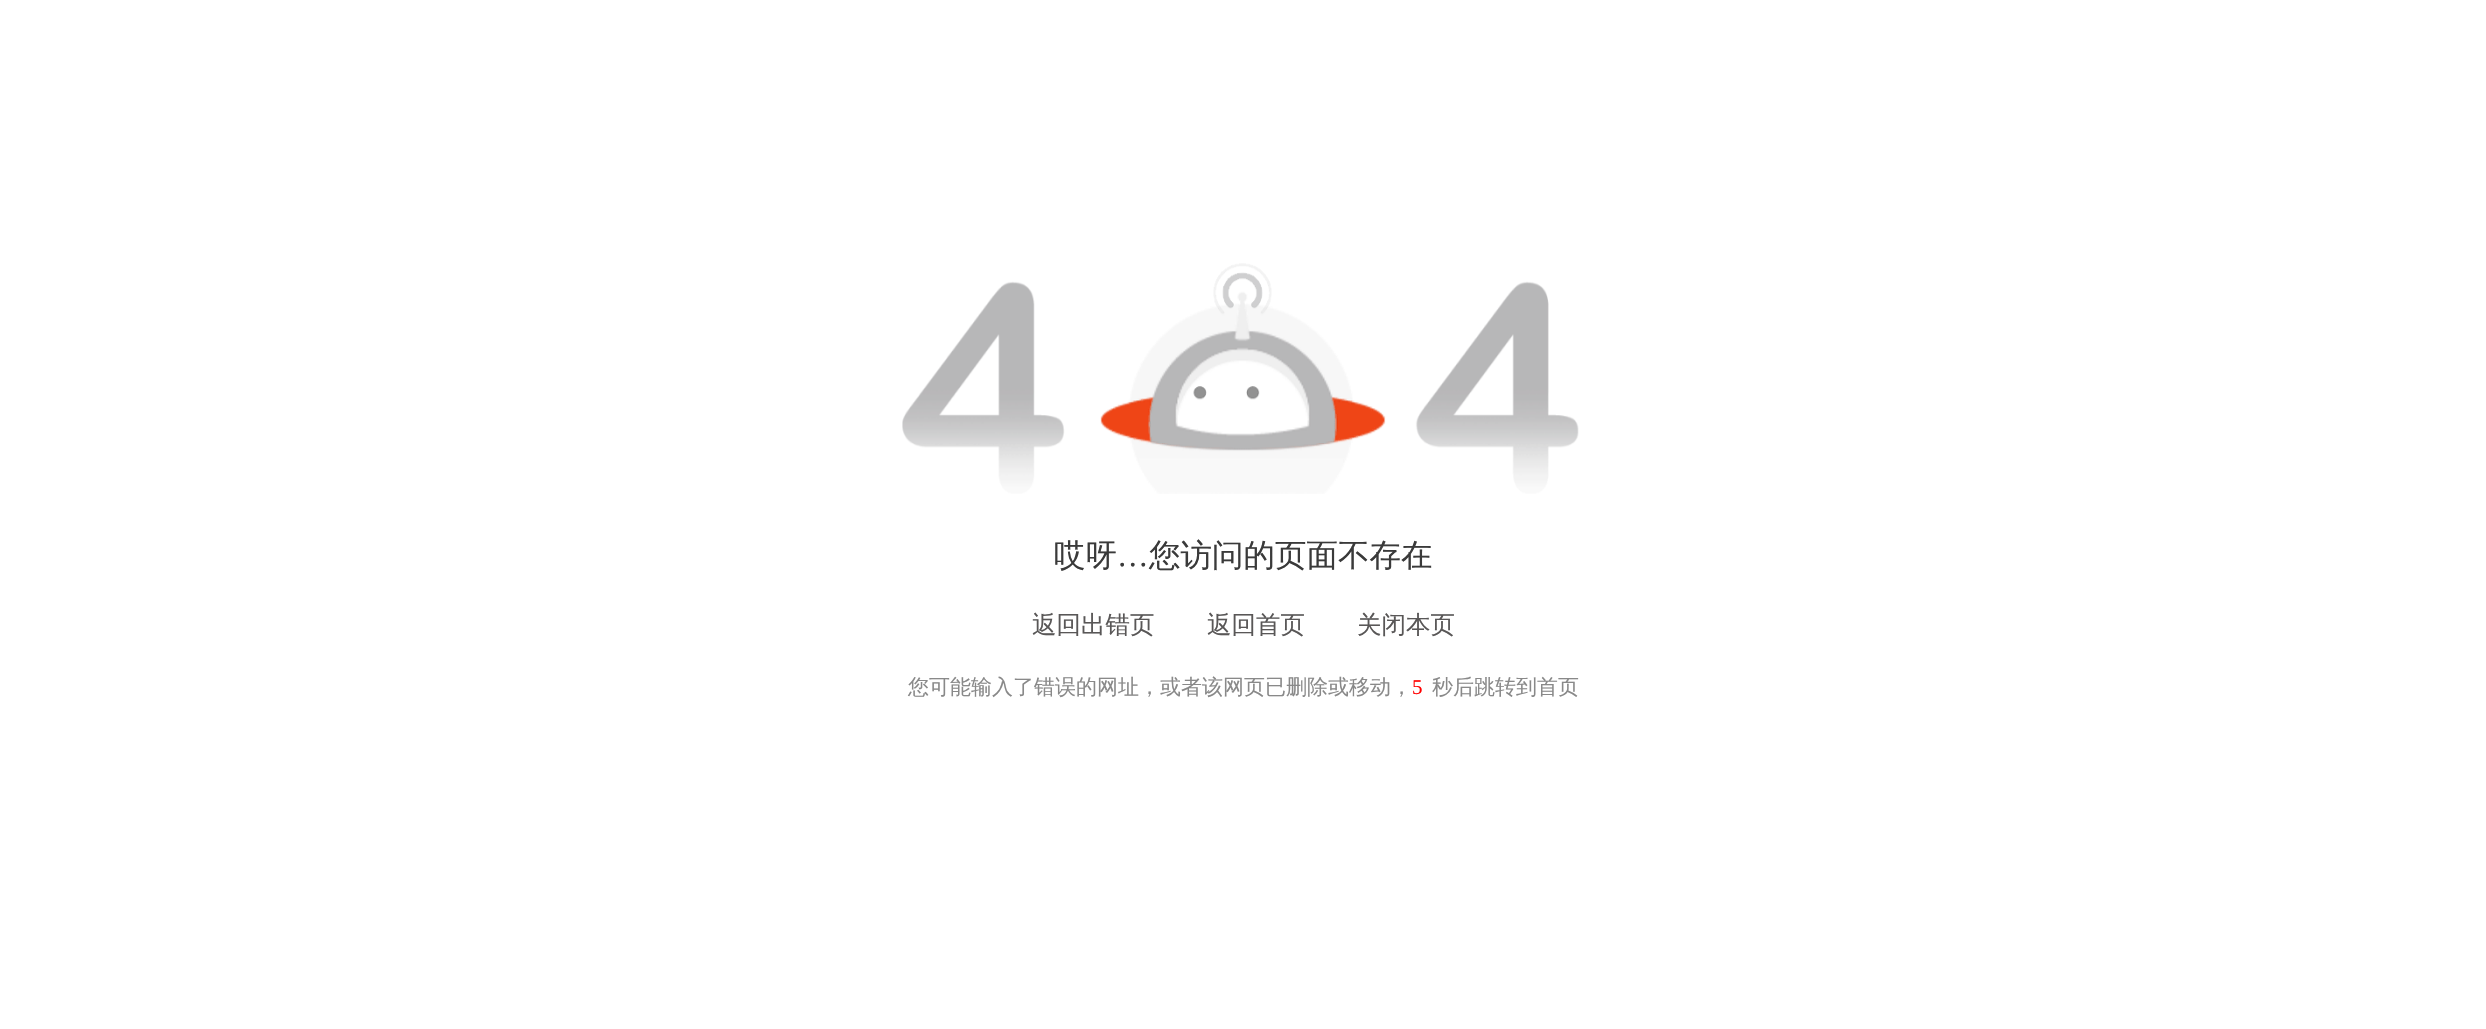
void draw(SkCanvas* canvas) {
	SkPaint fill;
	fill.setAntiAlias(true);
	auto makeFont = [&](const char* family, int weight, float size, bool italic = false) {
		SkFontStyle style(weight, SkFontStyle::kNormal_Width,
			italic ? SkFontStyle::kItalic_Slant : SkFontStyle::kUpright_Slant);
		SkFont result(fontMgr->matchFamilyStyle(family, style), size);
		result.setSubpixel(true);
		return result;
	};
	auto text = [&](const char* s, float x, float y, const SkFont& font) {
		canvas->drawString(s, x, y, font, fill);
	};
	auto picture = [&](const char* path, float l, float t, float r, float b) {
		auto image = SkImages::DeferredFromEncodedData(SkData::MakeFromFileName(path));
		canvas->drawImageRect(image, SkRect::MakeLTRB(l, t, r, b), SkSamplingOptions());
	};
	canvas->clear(0xFFFFFFFF);
	picture("image0.png", 902, 263, 1579, 494);
	auto font1 = makeFont("WenQuanYi Zen Hei", 500, 31.5f);
	fill.setColor(0xFF3A3A3A);
	text("哎呀", 1054, 566, font1);
	auto font2 = makeFont("Liberation Serif", 400, 31.5f);
	text("…", 1117, 566, font2);
	text("您访问的页面不存在", 1149, 566, font1);
	auto font3 = makeFont("WenQuanYi Zen Hei", 500, 24.5f);
	fill.setColor(0xFF595757);
	text("返回出错页", 1032, 633, font3);
	text("返回首页", 1207, 633, font3);
	text("关闭本页", 1357, 633, font3);
	auto font4 = makeFont("WenQuanYi Zen Hei", 500, 21);
	fill.setColor(0xFF898989);
	text("您可能输入了错误的网址，或者该网页已删除或移动，", 908, 694, font4);
	auto font5 = makeFont("Liberation Serif", 400, 21);
	fill.setColor(0xFFFF0000);
	text("5", 1412, 694, font5);
	fill.setColor(0xFF898989);
	text("秒后跳转到首页", 1432, 694, font4);
}
